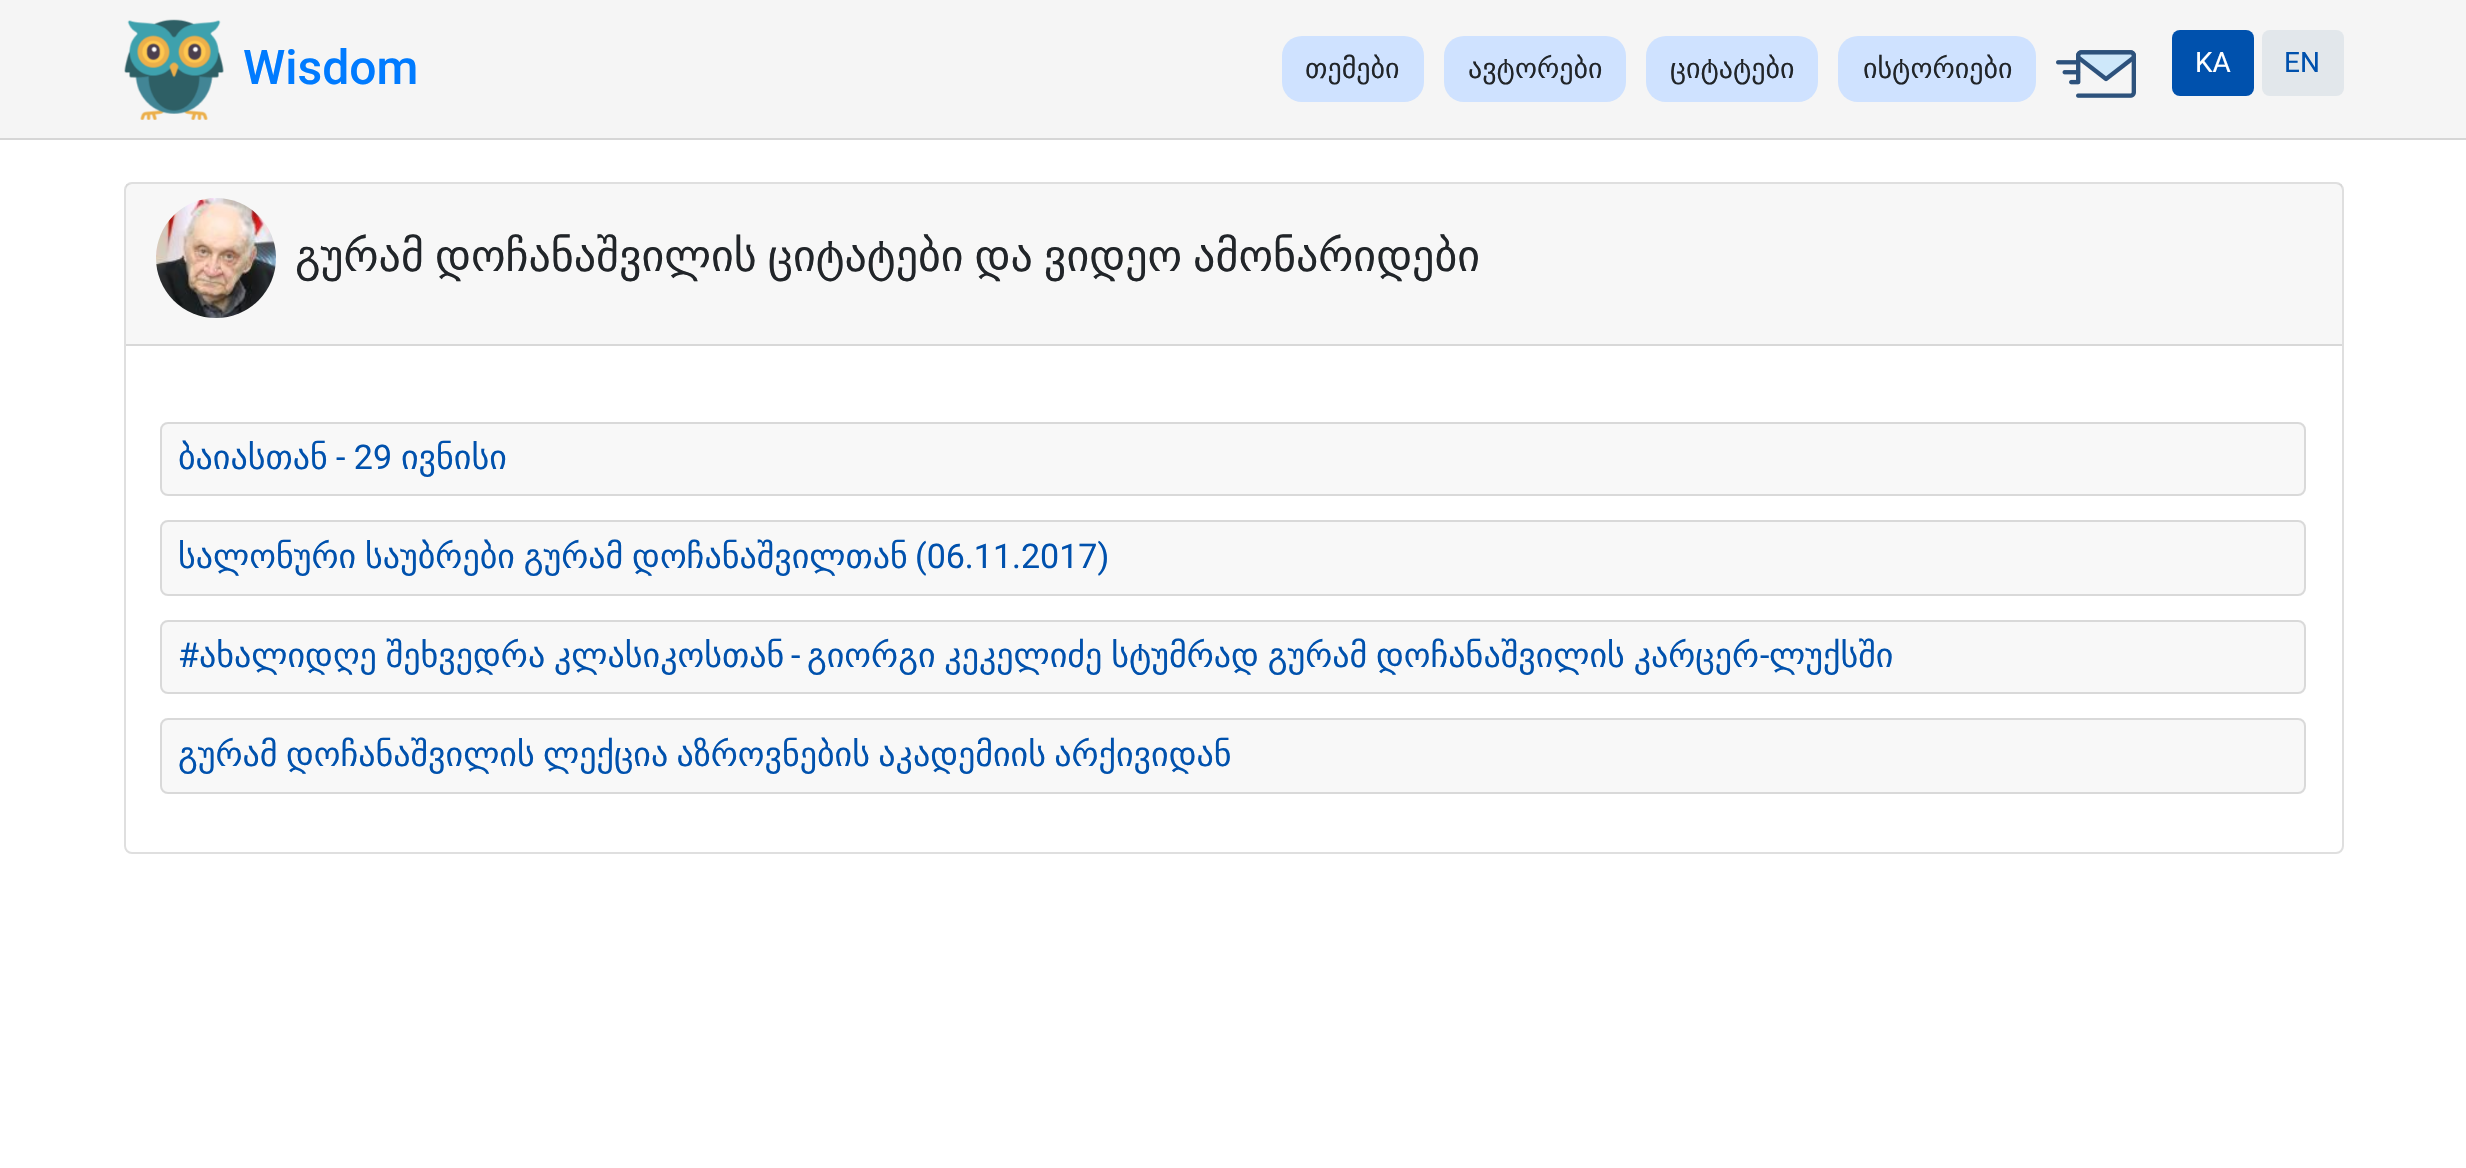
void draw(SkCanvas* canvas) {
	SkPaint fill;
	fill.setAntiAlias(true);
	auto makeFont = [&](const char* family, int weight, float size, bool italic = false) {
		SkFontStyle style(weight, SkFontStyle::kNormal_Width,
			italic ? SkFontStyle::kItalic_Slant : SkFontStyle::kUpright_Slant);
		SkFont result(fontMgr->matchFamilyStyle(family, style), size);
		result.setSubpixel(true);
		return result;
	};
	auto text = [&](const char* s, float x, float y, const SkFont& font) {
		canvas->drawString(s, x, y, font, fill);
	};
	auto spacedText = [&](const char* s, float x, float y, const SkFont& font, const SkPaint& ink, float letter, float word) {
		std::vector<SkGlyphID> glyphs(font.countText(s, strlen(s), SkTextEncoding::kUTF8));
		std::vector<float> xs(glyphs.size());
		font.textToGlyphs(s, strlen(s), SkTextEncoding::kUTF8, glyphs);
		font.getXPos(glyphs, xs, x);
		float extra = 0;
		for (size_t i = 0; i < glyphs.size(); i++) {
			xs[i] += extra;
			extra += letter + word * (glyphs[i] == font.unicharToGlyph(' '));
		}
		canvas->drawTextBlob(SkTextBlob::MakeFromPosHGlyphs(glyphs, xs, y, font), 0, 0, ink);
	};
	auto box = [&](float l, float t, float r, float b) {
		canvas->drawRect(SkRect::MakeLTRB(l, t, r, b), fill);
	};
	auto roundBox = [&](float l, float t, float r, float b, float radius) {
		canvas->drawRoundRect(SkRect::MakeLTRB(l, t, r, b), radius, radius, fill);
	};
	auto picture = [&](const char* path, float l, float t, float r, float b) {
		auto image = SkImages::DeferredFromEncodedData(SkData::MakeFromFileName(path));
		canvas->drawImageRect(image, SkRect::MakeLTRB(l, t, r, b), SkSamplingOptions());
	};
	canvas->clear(0xFFFFFFFF);
	fill.setColor(0xFFF5F5F5);
	box(0, 0, 2466, 138);
	fill.setColor(0xFFD6D6D6);
	box(0, 138, 2466, 140);
	picture("image0.png", 124, 19, 224, 120);
	fill.setColor(0xFFCFE2FF);
	roundBox(1282, 36, 1424, 102, 20);
	roundBox(1444, 36, 1626, 102, 20);
	roundBox(1646, 36, 1818, 102, 20);
	roundBox(1838, 36, 2036, 102, 20);
	picture("image1.png", 2056, 50, 2136, 98);
	fill.setColor(0xFF0051AD);
	roundBox(2172, 30, 2254, 96, 8);
	fill.setColor(0xFFE2E7EB);
	roundBox(2262, 30, 2344, 96, 8);
	fill.setStyle(SkPaint::kStroke_Style);
	fill.setStrokeWidth(2);
	fill.setColor(0xFFDFDFDF);
	canvas->drawRoundRect(SkRect::MakeLTRB(125, 183, 2343, 853), 7, 7, fill);
	fill.setStyle(SkPaint::kFill_Style);
	fill.setColor(0x08000000);
	box(126, 184, 2342, 344);
	fill.setColor(0xFFD8D8D8);
	box(126, 344, 2342, 346);
	picture("image2.png", 156, 198, 276, 318);
	fill.setColor(0xFFF8F8F8);
	roundBox(160, 422, 2306, 496, 8);
	fill.setStyle(SkPaint::kStroke_Style);
	fill.setColor(0x1F000000);
	canvas->drawRoundRect(SkRect::MakeLTRB(161, 423, 2305, 495), 7, 7, fill);
	fill.setStyle(SkPaint::kFill_Style);
	fill.setColor(0xFFF8F8F8);
	roundBox(160, 520, 2306, 596, 8);
	fill.setStyle(SkPaint::kStroke_Style);
	fill.setColor(0x1F000000);
	canvas->drawRoundRect(SkRect::MakeLTRB(161, 521, 2305, 595), 7, 7, fill);
	fill.setStyle(SkPaint::kFill_Style);
	fill.setColor(0xFFF8F8F8);
	roundBox(160, 620, 2306, 694, 8);
	fill.setStyle(SkPaint::kStroke_Style);
	fill.setColor(0x1F000000);
	canvas->drawRoundRect(SkRect::MakeLTRB(161, 621, 2305, 693), 7, 7, fill);
	fill.setStyle(SkPaint::kFill_Style);
	fill.setColor(0xFFF8F8F8);
	roundBox(160, 718, 2306, 794, 8);
	fill.setStyle(SkPaint::kStroke_Style);
	fill.setColor(0x1F000000);
	canvas->drawRoundRect(SkRect::MakeLTRB(161, 719, 2305, 793), 7, 7, fill);
	auto font1 = makeFont("Roboto", 500, 48);
	fill.setStyle(SkPaint::kFill_Style);
	fill.setColor(0xFF007BFF);
	text("Wisdom", 243, 84, font1);
	auto font2 = makeFont("DejaVu Sans", 400, 28);
	fill.setColor(0xFF212529);
	text("თემები", 1305, 78, font2);
	text("ავტორები", 1468, 78, font2);
	text("ციტატები", 1670, 78, font2);
	text("ისტორიები", 1863, 78, font2);
	auto font3 = makeFont("Roboto", 400, 28);
	fill.setColor(0xFFFFFFFF);
	text("KA", 2195, 72, font3);
	fill.setColor(0xFF0051AD);
	text("EN", 2284, 72, font3);
	auto font4 = makeFont("DejaVu Sans", 400, 44);
	fill.setColor(0xFF212529);
	spacedText("გურამ დოჩანაშვილის ციტატები და ვიდეო ამონარიდები", 295, 271, font4, fill, 0, -3);
	auto font5 = makeFont("DejaVu Sans", 400, 34);
	fill.setColor(0xFF0051AD);
	text("ბაიასთან", 178, 469, font5);
	auto font6 = makeFont("Roboto", 400, 34);
	text("- 29", 336, 469, font6);
	text("ივნისი", 401, 469, font5);
	spacedText("სალონური საუბრები გურამ დოჩანაშვილთან", 178, 568, font5, fill, 0, -2);
	text("(06.11.2017)", 915, 568, font6);
	text("#", 178, 667, font6);
	spacedText("ახალიდღე შეხვედრა კლასიკოსთან", 199, 667, font5, fill, 0, -2);
	text("-", 791, 667, font6);
	spacedText("გიორგი კეკელიძე სტუმრად გურამ დოჩანაშვილის კარცერ", 807, 667, font5, fill, 0, -2);
	text("-", 1760, 667, font6);
	text("ლუქსში", 1769, 667, font5);
	spacedText("გურამ დოჩანაშვილის ლექცია აზროვნების აკადემიის არქივიდან", 178, 766, font5, fill, 0, -2.5f);
}
